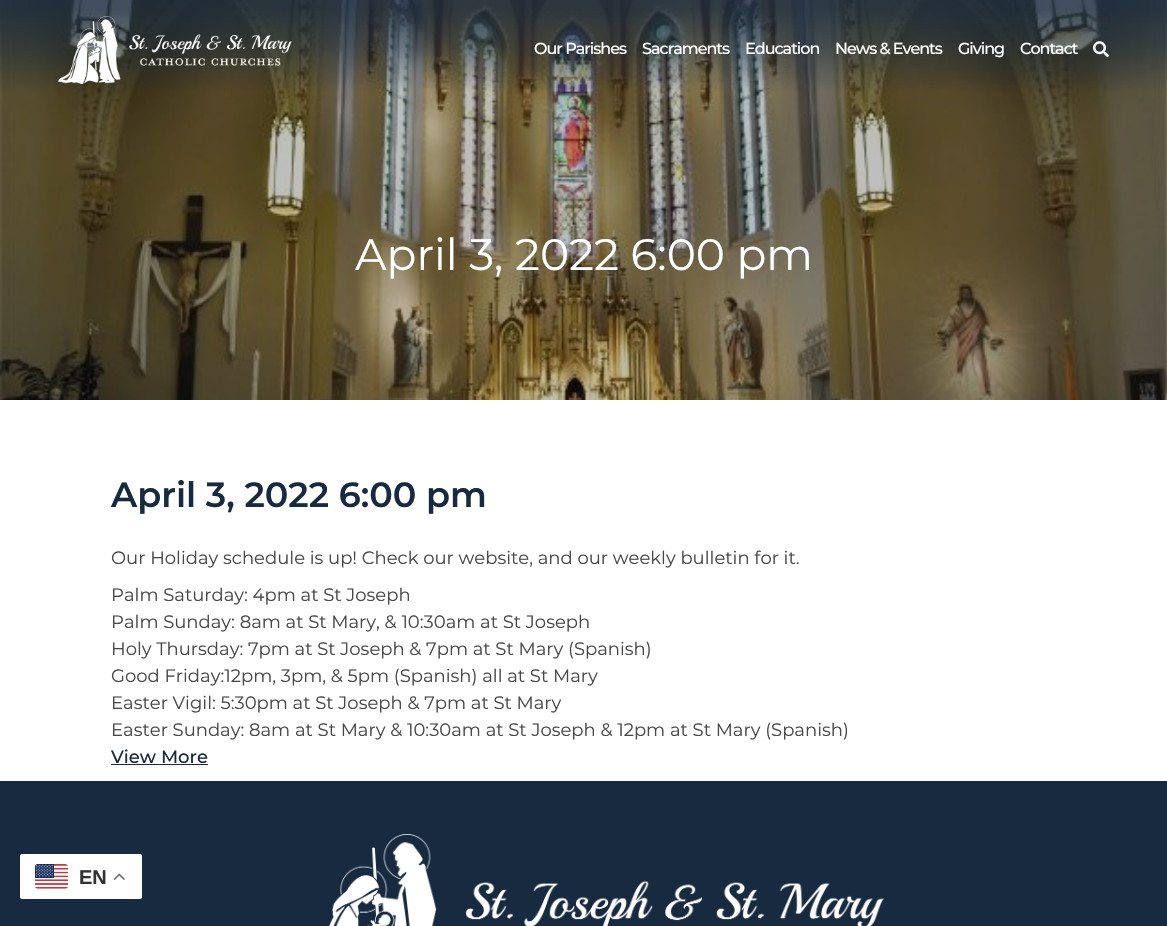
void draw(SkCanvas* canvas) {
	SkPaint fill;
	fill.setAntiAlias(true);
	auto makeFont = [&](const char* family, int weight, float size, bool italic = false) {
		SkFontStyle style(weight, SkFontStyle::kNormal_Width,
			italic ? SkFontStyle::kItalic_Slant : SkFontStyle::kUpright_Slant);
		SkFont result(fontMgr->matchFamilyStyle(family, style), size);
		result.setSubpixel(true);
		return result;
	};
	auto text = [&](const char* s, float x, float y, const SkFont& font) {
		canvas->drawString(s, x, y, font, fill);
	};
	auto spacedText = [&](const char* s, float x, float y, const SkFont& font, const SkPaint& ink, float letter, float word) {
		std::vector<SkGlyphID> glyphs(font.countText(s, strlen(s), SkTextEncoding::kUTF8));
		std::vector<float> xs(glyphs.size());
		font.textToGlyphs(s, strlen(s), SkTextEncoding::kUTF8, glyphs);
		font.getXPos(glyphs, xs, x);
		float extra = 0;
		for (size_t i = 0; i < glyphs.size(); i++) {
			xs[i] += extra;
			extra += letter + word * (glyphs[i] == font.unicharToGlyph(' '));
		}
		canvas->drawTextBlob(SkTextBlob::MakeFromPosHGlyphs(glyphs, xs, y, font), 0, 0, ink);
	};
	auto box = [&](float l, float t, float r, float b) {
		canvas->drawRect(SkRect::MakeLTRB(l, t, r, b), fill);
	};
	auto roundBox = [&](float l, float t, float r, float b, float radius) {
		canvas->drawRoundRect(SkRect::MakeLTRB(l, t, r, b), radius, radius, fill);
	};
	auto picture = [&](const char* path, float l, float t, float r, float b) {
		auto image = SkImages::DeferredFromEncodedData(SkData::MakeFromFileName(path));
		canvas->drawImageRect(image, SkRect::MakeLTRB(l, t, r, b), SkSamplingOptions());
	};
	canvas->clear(0xFFFFFFFF);
	picture("image2.png", 0, 0, 1167, 400);
	picture("image0.png", 58, 16, 292, 84);
	picture("image1.png", 1093, 41, 1109, 58);
	fill.setColor(0xFF172A40);
	box(111, 764, 208, 765);
	box(0, 781, 1167, 926);
	picture("image3.png", 329, 834, 884, 926);
	fill.setColor(0xFFFFFFFF);
	roundBox(20, 854, 142, 899, 2);
	picture("image4.png", 35, 864, 68, 889);
	picture("image5.png", 114, 873, 125, 880);
	auto font1 = makeFont("Montserrat", 500, 16);
	spacedText("Our Parishes", 534, 54, font1, fill, -1, 0);
	spacedText("Sacraments", 642, 54, font1, fill, -1, 0);
	spacedText("Education", 745, 54, font1, fill, -1, 0);
	spacedText("News & Events", 835, 54, font1, fill, -1, 0);
	spacedText("Giving", 958, 54, font1, fill, -1, 0);
	spacedText("Contact", 1020, 54, font1, fill, -1, 0);
	auto font2 = makeFont("Montserrat", 400, 44);
	text("April 3, 2022 6:00 pm", 355, 270, font2);
	auto font3 = makeFont("Montserrat", 600, 35);
	fill.setColor(0xFF172A40);
	text("April 3, 2022 6:00 pm", 111, 507, font3);
	auto font4 = makeFont("Montserrat", 400, 18);
	fill.setColor(0xFF484848);
	text("Our Holiday schedule is up! Check our website, and our weekly bulletin for it.", 111, 564, font4);
	text("Palm Saturday: 4pm at St Joseph", 111, 601, font4);
	text("Palm Sunday: 8am at St Mary, & 10:30am at St Joseph", 111, 628, font4);
	text("Holy Thursday: 7pm at St Joseph & 7pm at St Mary (Spanish)", 111, 655, font4);
	text("Good Friday:12pm, 3pm, & 5pm (Spanish) all at St Mary", 111, 682, font4);
	text("Easter Vigil: 5:30pm at St Joseph & 7pm at St Mary", 111, 709, font4);
	text("Easter Sunday: 8am at St Mary & 10:30am at St Joseph & 12pm at St Mary (Spanish)", 111, 736, font4);
	auto font5 = makeFont("Montserrat", 500, 18);
	fill.setColor(0xFF172A40);
	text("View More", 111, 763, font5);
	auto font6 = makeFont("Liberation Sans", 700, 20);
	fill.setColor(0xFF333333);
	text("EN", 79, 884, font6);
}
